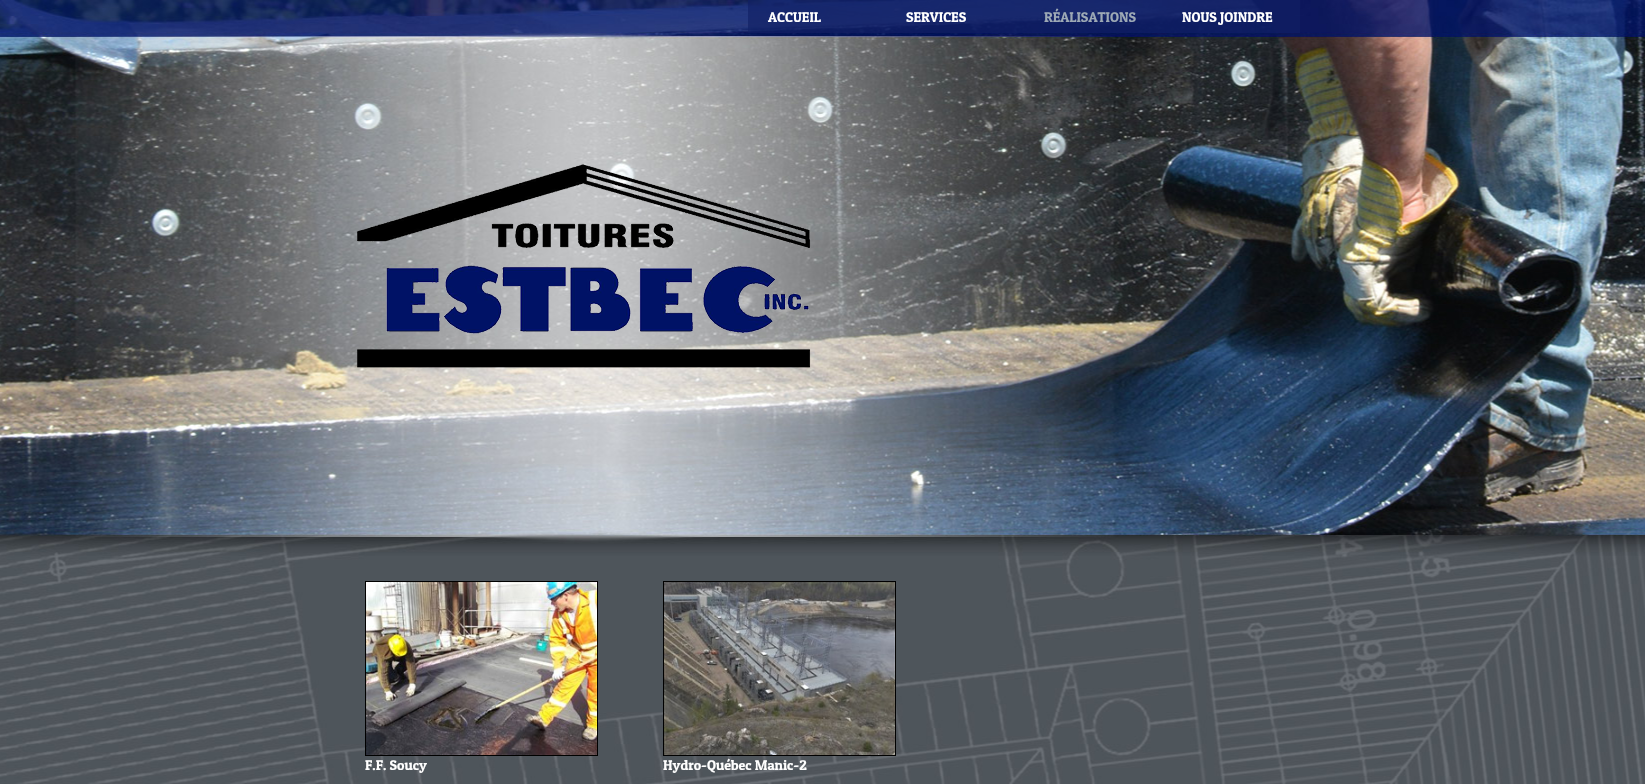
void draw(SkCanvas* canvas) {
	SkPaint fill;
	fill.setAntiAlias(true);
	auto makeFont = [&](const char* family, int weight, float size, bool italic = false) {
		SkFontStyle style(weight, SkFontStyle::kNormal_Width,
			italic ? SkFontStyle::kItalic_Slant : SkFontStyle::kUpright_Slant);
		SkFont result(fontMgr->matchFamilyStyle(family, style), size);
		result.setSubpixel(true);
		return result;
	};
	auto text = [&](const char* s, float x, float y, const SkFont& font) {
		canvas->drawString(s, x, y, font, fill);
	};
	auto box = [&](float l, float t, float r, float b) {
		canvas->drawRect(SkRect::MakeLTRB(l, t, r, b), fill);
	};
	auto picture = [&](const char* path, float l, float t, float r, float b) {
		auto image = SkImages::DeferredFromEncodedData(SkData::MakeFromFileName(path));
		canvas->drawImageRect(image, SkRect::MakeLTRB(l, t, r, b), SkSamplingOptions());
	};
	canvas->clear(0xFFFFFFFF);
	picture("image0.png", 0, 556, 1645, 784);
	picture("image1.png", 0, 0, 1645, 556);
	picture("image2.png", 357, 164, 811, 368);
	fill.setColor(0xA6101F64);
	box(748, 0, 886, 33);
	box(886, 0, 1024, 33);
	box(1024, 0, 1162, 33);
	box(1162, 0, 1300, 33);
	fill.setStyle(SkPaint::kStroke_Style);
	fill.setStrokeWidth(1);
	fill.setColor(0xFF000000);
	canvas->drawRect(SkRect::MakeLTRB(365.5f, 581.5f, 597.5f, 755.5f), fill);
	picture("image3.png", 366, 582, 597, 755);
	canvas->drawRect(SkRect::MakeLTRB(663.5f, 581.5f, 895.5f, 755.5f), fill);
	picture("image4.png", 664, 582, 895, 755);
	auto font1 = makeFont("Patua One", 400, 14);
	fill.setStyle(SkPaint::kFill_Style);
	fill.setColor(0xFFFFFFFF);
	text("ACCUEIL", 768, 22, font1);
	text("SERVICES", 906, 22, font1);
	fill.setColor(0xFF9DA9B5);
	text("RÉALISATIONS", 1044, 22, font1);
	fill.setColor(0xFFFFFFFF);
	text("NOUS JOINDRE", 1182, 22, font1);
	text("F.F. Soucy", 365, 770, font1);
	text("Hydro-Québec Manic-2", 663, 770, font1);
}
